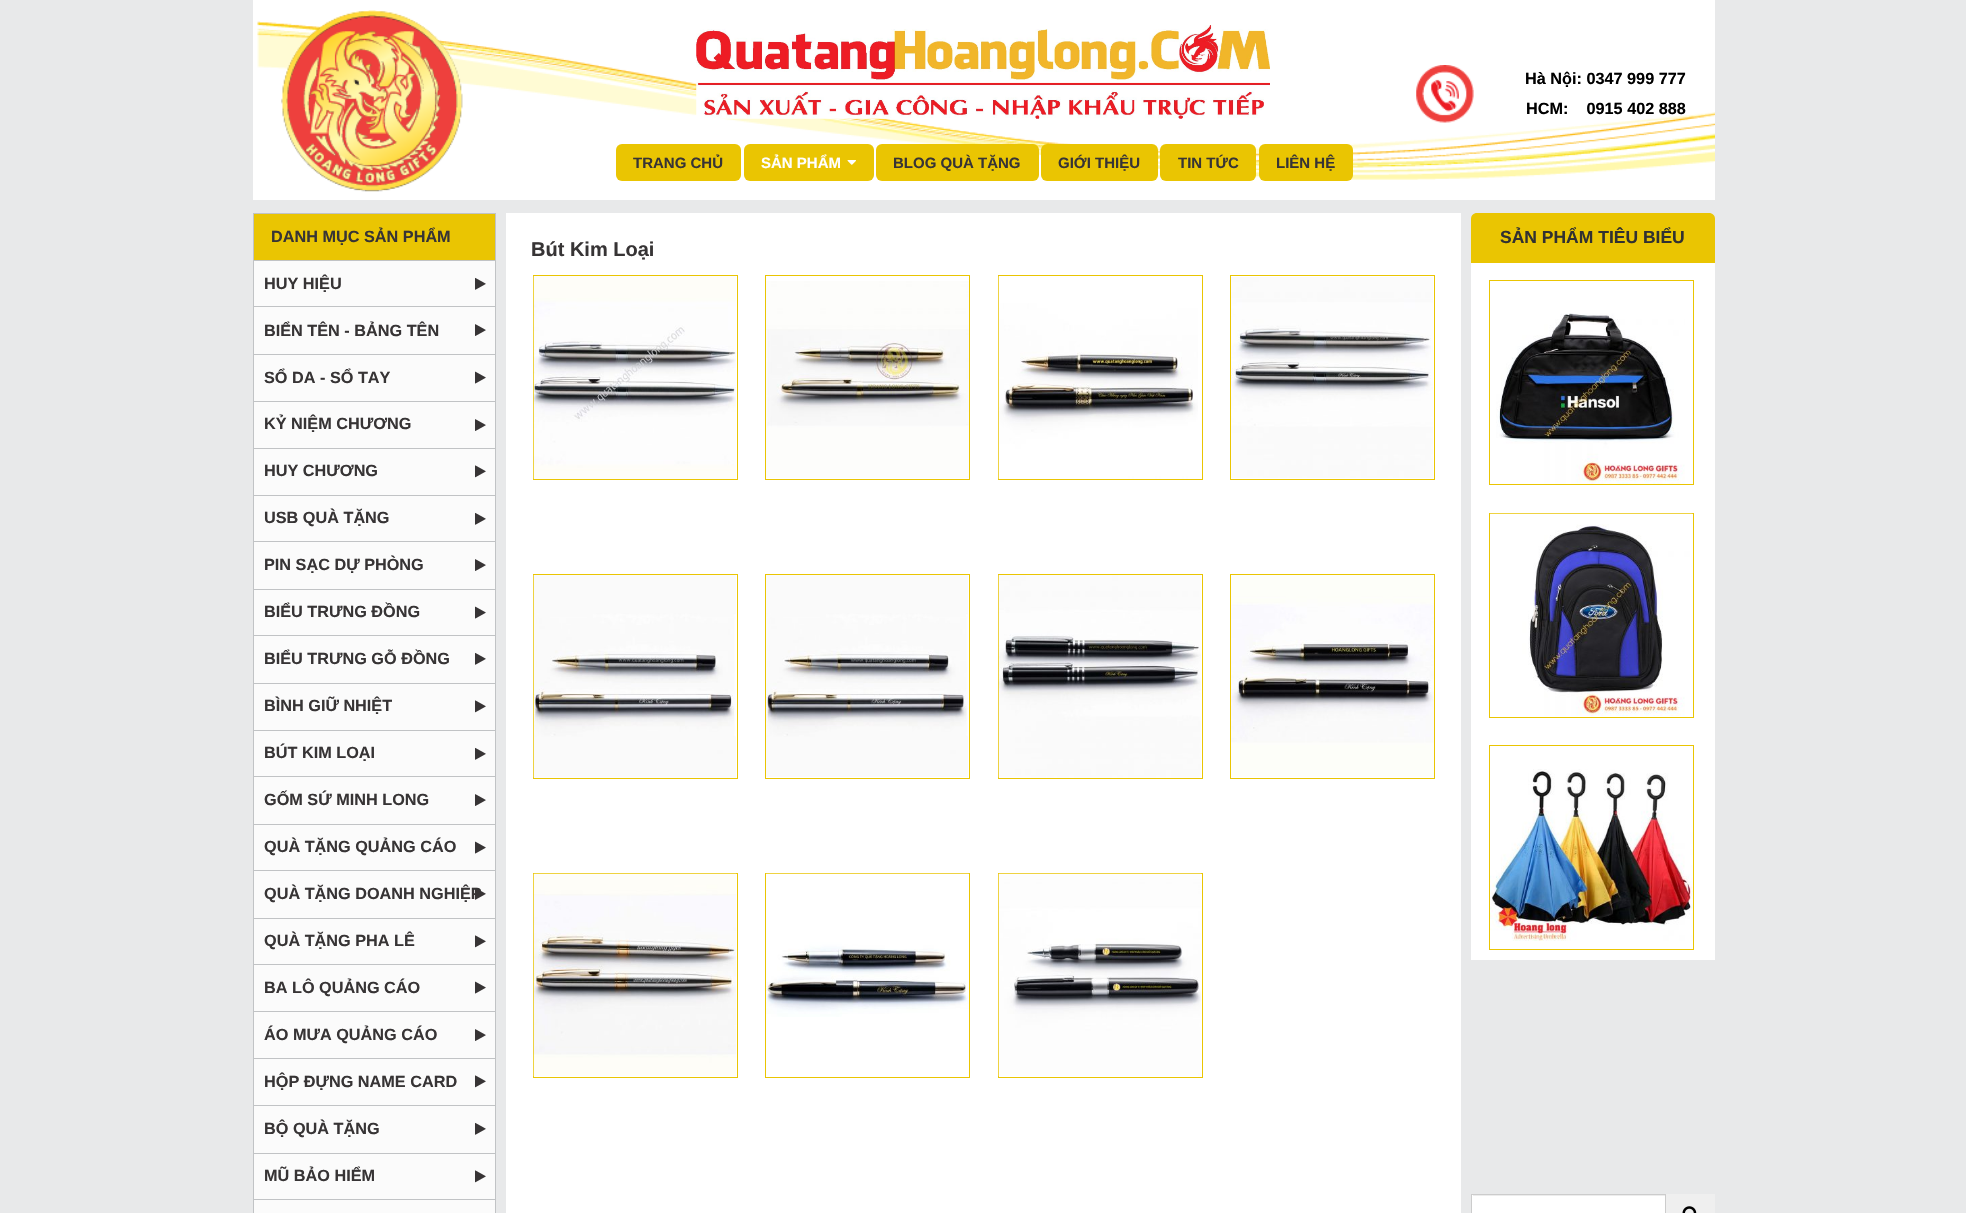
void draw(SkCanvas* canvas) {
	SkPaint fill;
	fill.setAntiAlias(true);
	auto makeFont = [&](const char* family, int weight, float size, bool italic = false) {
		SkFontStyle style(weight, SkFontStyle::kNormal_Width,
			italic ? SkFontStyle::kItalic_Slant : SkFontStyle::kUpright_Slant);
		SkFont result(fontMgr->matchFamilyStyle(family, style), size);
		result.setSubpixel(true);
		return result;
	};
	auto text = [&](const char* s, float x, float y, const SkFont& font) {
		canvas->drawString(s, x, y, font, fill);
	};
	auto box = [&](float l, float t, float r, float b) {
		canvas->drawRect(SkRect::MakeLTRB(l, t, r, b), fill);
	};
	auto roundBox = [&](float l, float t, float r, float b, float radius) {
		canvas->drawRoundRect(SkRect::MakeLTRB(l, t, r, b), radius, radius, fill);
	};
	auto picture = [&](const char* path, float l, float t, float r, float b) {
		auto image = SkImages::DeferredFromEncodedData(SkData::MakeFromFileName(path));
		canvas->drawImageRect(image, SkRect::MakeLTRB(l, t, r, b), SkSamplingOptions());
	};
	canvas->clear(0xFFE8E9EA);
	fill.setColor(0xFFFFFFFF);
	box(253, 0, 1715, 200);
	picture("image0.png", 257, 21, 1715, 180);
	picture("image1.png", 281, 10, 463, 192);
	picture("image2.png", 1416, 65, 1474, 123);
	picture("image3.png", 696, 25, 1270, 119);
	fill.setColor(0xFFEAC502);
	roundBox(616, 144, 741, 181, 6);
	roundBox(744, 144, 874, 181, 6);
	picture("image4.png", 847, 160, 856, 165);
	roundBox(876, 144, 1039, 181, 6);
	roundBox(1041, 144, 1158, 181, 6);
	roundBox(1160, 144, 1256, 181, 6);
	roundBox(1259, 144, 1353, 181, 6);
	fill.setColor(0xFFFBFBFB);
	box(254, 261, 495, 1213);
	fill.setColor(0xFFC1C3C5);
	box(253, 213, 496, 214);
	box(495, 213, 496, 1213);
	box(253, 213, 254, 1213);
	fill.setColor(0xFFEAC502);
	box(254, 214, 495, 260);
	fill.setColor(0xFFC1C3C5);
	box(254, 260, 495, 261);
	box(254, 306, 495, 307);
	picture("image5.png", 475, 277, 486, 290);
	box(254, 354, 495, 355);
	picture("image6.png", 475, 324, 486, 336);
	box(254, 401, 495, 402);
	picture("image7.png", 475, 371, 486, 384);
	box(254, 448, 495, 449);
	picture("image6.png", 475, 419, 486, 431);
	box(254, 495, 495, 496);
	picture("image8.png", 475, 465, 486, 478);
	box(254, 541, 495, 542);
	picture("image5.png", 475, 512, 486, 525);
	box(254, 589, 495, 590);
	picture("image6.png", 475, 559, 486, 571);
	box(254, 635, 495, 636);
	picture("image7.png", 475, 606, 486, 619);
	box(254, 683, 495, 684);
	picture("image5.png", 475, 652, 486, 665);
	box(254, 730, 495, 731);
	picture("image8.png", 475, 700, 486, 713);
	box(254, 776, 495, 777);
	picture("image5.png", 475, 747, 486, 760);
	box(254, 824, 495, 825);
	picture("image6.png", 475, 794, 486, 806);
	box(254, 870, 495, 871);
	picture("image7.png", 475, 841, 486, 854);
	box(254, 918, 495, 919);
	box(254, 964, 495, 965);
	picture("image8.png", 475, 935, 486, 948);
	box(254, 1011, 495, 1012);
	picture("image7.png", 475, 981, 486, 994);
	box(254, 1058, 495, 1059);
	picture("image6.png", 475, 1029, 486, 1041);
	box(254, 1105, 495, 1106);
	picture("image8.png", 475, 1075, 486, 1088);
	box(254, 1153, 495, 1154);
	picture("image5.png", 475, 1122, 486, 1135);
	box(254, 1199, 495, 1200);
	picture("image8.png", 475, 1170, 486, 1183);
	fill.setColor(0xFFFFFFFF);
	canvas->drawPath(SkPathBuilder().moveTo(1480, 213).lineTo(1706, 213).cubicTo(1711, 213, 1715, 217, 1715, 222).lineTo(1715, 960).lineTo(1471, 960).lineTo(1471, 222).cubicTo(1471, 217, 1475, 213, 1480, 213).close().detach(), fill);
	fill.setColor(0xFFEAC502);
	canvas->drawPath(SkPathBuilder().moveTo(1477, 213).lineTo(1709, 213).cubicTo(1712.5f, 213, 1715, 215.5f, 1715, 219).lineTo(1715, 263).lineTo(1471, 263).lineTo(1471, 219).cubicTo(1471, 215.5f, 1473.5f, 213, 1477, 213).close().detach(), fill);
	fill.setStyle(SkPaint::kStroke_Style);
	fill.setStrokeWidth(1);
	canvas->drawRect(SkRect::MakeLTRB(1489.5f, 280.5f, 1693.5f, 484.5f), fill);
	picture("image10.png", 1496, 313, 1685, 484);
	canvas->drawRect(SkRect::MakeLTRB(1489.5f, 513.5f, 1693.5f, 717.5f), fill);
	picture("image11.png", 1490, 513, 1693, 716);
	canvas->drawRect(SkRect::MakeLTRB(1489.5f, 745.5f, 1693.5f, 949.5f), fill);
	picture("image12.png", 1490, 769, 1693, 941);
	fill.setStyle(SkPaint::kFill_Style);
	fill.setColor(0xFFFFFFFF);
	box(1472, 1195, 1665, 1213);
	fill.setColor(0xFFECECEC);
	box(1473, 1195, 1665, 1196);
	fill.setStyle(SkPaint::kStroke_Style);
	fill.setColor(0xFFCCCCCC);
	canvas->drawRect(SkRect::MakeLTRB(1471.5f, 1194.5f, 1665.5f, 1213.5f), fill);
	fill.setStyle(SkPaint::kFill_Style);
	fill.setColor(0xFFEFEFEF);
	box(1666, 1194, 1715, 1213);
	picture("image13.png", 1682, 1206, 1697, 1213);
	fill.setColor(0xFFFFFFFF);
	box(506, 213, 1461, 1213);
	fill.setStyle(SkPaint::kStroke_Style);
	fill.setColor(0xFFEAC502);
	canvas->drawRect(SkRect::MakeLTRB(533.5f, 275.5f, 737.5f, 479.5f), fill);
	picture("image14.png", 533, 276, 736, 479);
	canvas->drawRect(SkRect::MakeLTRB(765.5f, 275.5f, 969.5f, 479.5f), fill);
	picture("image15.png", 766, 281, 969, 478);
	canvas->drawRect(SkRect::MakeLTRB(998.5f, 275.5f, 1202.5f, 479.5f), fill);
	picture("image16.png", 998, 276, 1198, 479);
	canvas->drawRect(SkRect::MakeLTRB(1230.5f, 275.5f, 1434.5f, 479.5f), fill);
	picture("image17.png", 1231, 277, 1433, 478);
	canvas->drawRect(SkRect::MakeLTRB(533.5f, 574.5f, 737.5f, 778.5f), fill);
	picture("image18.png", 533, 575, 736, 778);
	canvas->drawRect(SkRect::MakeLTRB(765.5f, 574.5f, 969.5f, 778.5f), fill);
	picture("image19.png", 766, 575, 968, 777);
	canvas->drawRect(SkRect::MakeLTRB(998.5f, 574.5f, 1202.5f, 778.5f), fill);
	picture("image20.png", 998, 575, 1201, 778);
	canvas->drawRect(SkRect::MakeLTRB(1230.5f, 574.5f, 1434.5f, 778.5f), fill);
	picture("image21.png", 1231, 575, 1434, 777);
	canvas->drawRect(SkRect::MakeLTRB(533.5f, 873.5f, 737.5f, 1077.5f), fill);
	picture("image22.png", 533, 873, 737, 1077);
	canvas->drawRect(SkRect::MakeLTRB(765.5f, 873.5f, 969.5f, 1077.5f), fill);
	picture("image23.png", 766, 873, 969, 1017);
	canvas->drawRect(SkRect::MakeLTRB(998.5f, 873.5f, 1202.5f, 1077.5f), fill);
	picture("image24.png", 998, 873, 1202, 1077);
	auto font1 = makeFont("Liberation Sans", 700, 16.25f);
	fill.setStyle(SkPaint::kFill_Style);
	fill.setColor(0xFF000000);
	text("Hà Nội: 0347 999 777", 1525, 84, font1);
	text("HCM:    0915 402 888", 1526, 114, font1);
	auto font2 = makeFont("Liberation Sans", 700, 15);
	fill.setColor(0xFF373435);
	text("TRANG CHỦ", 633, 168, font2);
	fill.setColor(0xFFFFFFFF);
	text("SẢN PHẨM", 761, 168, font2);
	fill.setColor(0xFF373435);
	text("BLOG QUÀ TẶNG", 893, 168, font2);
	text("GIỚI THIỆU", 1058, 168, font2);
	text("TIN TỨC", 1178, 168, font2);
	text("LIÊN HỆ", 1276, 168, font2);
	text("DANH MỤC SẢN PHẨM", 271, 242, font1);
	text("HUY HIỆU", 264, 289, font1);
	text("BIỂN TÊN - BẢNG TÊN", 264, 336, font1);
	text("SỔ DA - SỔ TAY", 264, 383, font1);
	text("KỶ NIỆM CHƯƠNG", 264, 429, font1);
	text("HUY CHƯƠNG", 264, 476, font1);
	text("USB QUÀ TẶNG", 264, 523, font1);
	text("PIN SẠC DỰ PHÒNG", 264, 570, font1);
	text("BIỂU TRƯNG ĐỒNG", 264, 617, font1);
	text("BIỂU TRƯNG GỖ ĐỒNG", 264, 664, font1);
	text("BÌNH GIỮ NHIỆT", 264, 711, font1);
	text("BÚT KIM LOẠI", 264, 758, font1);
	text("GỐM SỨ MINH LONG", 264, 805, font1);
	text("QUÀ TẶNG QUẢNG CÁO", 264, 852, font1);
	text("QUÀ TẶNG DOANH NGHIỆP", 264, 899, font1);
	picture("image9.png", 475, 889, 486, 900);
	text("QUÀ TẶNG PHA LÊ", 264, 946, font1);
	text("BA LÔ QUẢNG CÁO", 264, 993, font1);
	text("ÁO MƯA QUẢNG CÁO", 264, 1040, font1);
	text("HỘP ĐỰNG NAME CARD", 264, 1087, font1);
	text("BỘ QUÀ TẶNG", 264, 1134, font1);
	text("MŨ BẢO HIỂM", 264, 1181, font1);
	auto font3 = makeFont("Liberation Sans", 700, 17.5f);
	fill.setColor(0xFF313131);
	text("SẢN PHẨM TIÊU BIỂU", 1500, 243, font3);
	auto font4 = makeFont("Liberation Sans", 700, 20);
	fill.setColor(0xFF373435);
	text("Bút Kim Loại", 531, 256, font4);
}
